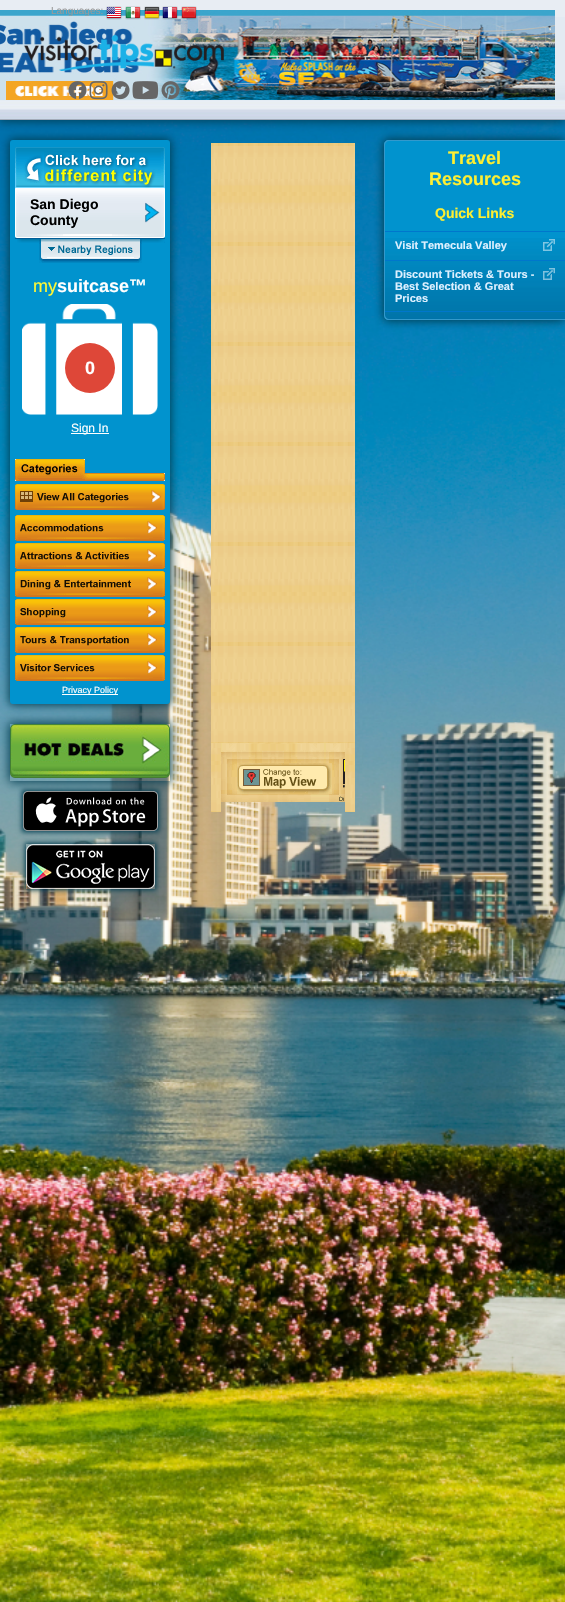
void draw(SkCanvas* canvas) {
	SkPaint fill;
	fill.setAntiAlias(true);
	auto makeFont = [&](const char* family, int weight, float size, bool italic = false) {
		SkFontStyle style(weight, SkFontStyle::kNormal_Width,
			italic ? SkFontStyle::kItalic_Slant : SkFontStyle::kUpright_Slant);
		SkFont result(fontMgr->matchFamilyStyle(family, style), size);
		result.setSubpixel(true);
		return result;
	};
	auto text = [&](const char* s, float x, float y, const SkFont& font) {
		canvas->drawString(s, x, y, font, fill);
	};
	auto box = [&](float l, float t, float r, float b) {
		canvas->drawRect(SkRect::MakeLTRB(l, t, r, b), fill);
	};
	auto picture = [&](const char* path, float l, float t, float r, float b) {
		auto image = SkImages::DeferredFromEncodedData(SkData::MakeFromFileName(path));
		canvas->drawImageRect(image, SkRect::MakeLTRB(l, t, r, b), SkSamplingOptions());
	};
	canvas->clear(0xFFFFFFFF);
	picture("image13.png", 0, 120, 565, 1602);
	fill.setColor(0xFF003C50);
	fill.setMaskFilter(SkMaskFilter::MakeBlur(kNormal_SkBlurStyle, 5));
	canvas->drawRect(SkRect::MakeLTRB(-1, -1, 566, 121), fill);
	fill.setMaskFilter(nullptr);
	fill.setColor(0xFFE8EDF3);
	box(0, 0, 565, 17);
	picture("image0.png", 0, 17, 565, 120);
	picture("image6.png", 0, 10, 555, 100);
	picture("image1.png", 106, 6, 122, 20);
	picture("image2.png", 125, 6, 141, 20);
	picture("image3.png", 144, 6, 160, 20);
	picture("image4.png", 162, 6, 178, 20);
	picture("image5.png", 181, 6, 197, 20);
	picture("image7.png", 24, 35, 224, 71);
	picture("image8.png", 68, 81, 87, 99);
	picture("image9.png", 89, 81, 108, 100);
	picture("image10.png", 111, 81, 130, 100);
	picture("image11.png", 132, 81, 159, 100);
	picture("image12.png", 161, 81, 180, 100);
	fill.setColor(0xFF003C50);
	fill.setMaskFilter(SkMaskFilter::MakeBlur(kNormal_SkBlurStyle, 5));
	canvas->drawRoundRect(SkRect::MakeLTRB(9, 139, 171, 705), 4, 4, fill);
	fill.setMaskFilter(nullptr);
	fill.setColor(0xFF0193CE);
	canvas->drawRoundRect(SkRect::MakeLTRB(11, 141, 169, 703), 2, 2, fill);
	fill.setStyle(SkPaint::kStroke_Style);
	fill.setStrokeWidth(2);
	canvas->drawRoundRect(SkRect::MakeLTRB(11, 141, 169, 703), 2, 2, fill);
	picture("image14.png", 15, 233, 165, 238);
	picture("image15.png", 15, 147, 165, 233);
	picture("image16.png", 145, 202, 160, 223);
	picture("image17.png", 17, 239, 165, 243);
	fill.setStyle(SkPaint::kFill_Style);
	fill.setColor(0xFF005E97);
	box(15, 238, 165, 239);
	picture("image18.png", 39, 239, 142, 263);
	picture("image19.png", 22, 304, 158, 415);
	fill.setColor(0xFFDE4738);
	canvas->drawCircle(90, 368, 25, fill);
	fill.setColor(0xFFFFFFFF);
	box(71, 433, 109, 434);
	picture("image20.png", 15, 459, 165, 481);
	picture("image21.png", 15, 484, 165, 510);
	picture("image22.png", 15, 515, 165, 541);
	picture("image23.png", 20, 524, 104, 532);
	picture("image22.png", 15, 543, 165, 569);
	picture("image24.png", 20, 552, 129, 560);
	picture("image22.png", 15, 571, 165, 597);
	picture("image25.png", 20, 580, 131, 590);
	picture("image22.png", 15, 599, 165, 625);
	picture("image26.png", 20, 608, 66, 618);
	picture("image22.png", 15, 627, 165, 653);
	picture("image27.png", 20, 636, 129, 646);
	picture("image22.png", 15, 655, 165, 681);
	picture("image28.png", 20, 664, 95, 672);
	box(62, 694, 118, 695);
	canvas->save();
	canvas->clipPath(SkPathBuilder(SkPathFillType::kEvenOdd).moveTo(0, 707).lineTo(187, 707).lineTo(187, 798).lineTo(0, 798).close().moveTo(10, 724).lineTo(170, 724).lineTo(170, 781).lineTo(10, 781).close().detach(), true);
	fill.setColor(0xFF003C50);
	fill.setMaskFilter(SkMaskFilter::MakeBlur(kNormal_SkBlurStyle, 5));
	canvas->drawRect(SkRect::MakeLTRB(9, 723, 171, 782), fill);
	fill.setMaskFilter(nullptr);
	canvas->restore();
	picture("image29.png", 10, 724, 170, 778);
	fill.setMaskFilter(SkMaskFilter::MakeBlur(kNormal_SkBlurStyle, 2.5f));
	canvas->drawRect(SkRect::MakeLTRB(22, 790, 159, 832), fill);
	fill.setMaskFilter(nullptr);
	picture("image30.png", 23, 791, 158, 831);
	canvas->save();
	canvas->clipPath(SkPathBuilder(SkPathFillType::kEvenOdd).moveTo(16, 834).lineTo(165, 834).lineTo(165, 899).lineTo(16, 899).close().moveTo(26, 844).lineTo(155, 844).lineTo(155, 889).lineTo(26, 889).close().detach(), true);
	fill.setMaskFilter(SkMaskFilter::MakeBlur(kNormal_SkBlurStyle, 2.5f));
	canvas->drawRect(SkRect::MakeLTRB(25, 843, 156, 890), fill);
	fill.setMaskFilter(nullptr);
	canvas->restore();
	picture("image31.png", 26, 844, 155, 889);
	picture("image32.png", 211, 143, 355, 243);
	picture("image32.png", 211, 243, 355, 343);
	picture("image32.png", 211, 343, 355, 443);
	picture("image32.png", 211, 443, 355, 543);
	picture("image32.png", 211, 543, 355, 643);
	picture("image32.png", 211, 643, 355, 743);
	picture("image33.png", 211, 743, 221, 812);
	picture("image33.png", 345, 743, 355, 812);
	picture("image34.png", 221, 743, 345, 802);
	picture("image35.png", 221, 752, 237, 802);
	picture("image36.png", 329, 752, 345, 802);
	picture("image37.png", 237, 763, 332, 794);
	picture("image38.png", 339, 759, 345, 801);
	fill.setMaskFilter(SkMaskFilter::MakeBlur(kNormal_SkBlurStyle, 5));
	canvas->drawRoundRect(SkRect::MakeLTRB(383, 139, 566, 321), 6, 6, fill);
	fill.setMaskFilter(nullptr);
	fill.setColor(0xFF0193CE);
	canvas->drawPath(SkPathBuilder().moveTo(389, 140).lineTo(565, 140).lineTo(565, 320).lineTo(389, 320).cubicTo(386, 320, 384, 318, 384, 315).lineTo(384, 145).cubicTo(384, 142, 386, 140, 389, 140).close().detach(), fill);
	picture("image39.png", 384, 238, 565, 319);
	fill.setColor(0xFF3399CC);
	canvas->drawPath(SkPathBuilder(SkPathFillType::kEvenOdd).moveTo(389, 140).lineTo(565, 140).lineTo(565, 320).lineTo(389, 320).cubicTo(386, 320, 384, 318, 384, 315).lineTo(384, 145).cubicTo(384, 142, 386, 140, 389, 140).close().moveTo(389, 141).lineTo(565, 141).lineTo(565, 319).lineTo(389, 319).cubicTo(387, 319, 385, 317, 385, 315).lineTo(385, 145).cubicTo(385, 143, 387, 141, 389, 141).close().detach(), fill);
	fill.setColor(0xFF0077CC);
	box(385, 231, 565, 232);
	box(385, 260, 565, 261);
	picture("image40.png", 543, 239, 555, 251);
	box(385, 311, 565, 312);
	picture("image41.png", 543, 268, 555, 280);
	auto font1 = makeFont("Liberation Sans", 400, 10);
	fill.setColor(0xFF999999);
	text("Languages:", 51, 14, font1);
	auto font2 = makeFont("Liberation Sans", 700, 14);
	fill.setColor(0xFF000000);
	text("San Diego", 30, 209, font2);
	text("County", 30, 225, font2);
	auto font3 = makeFont("Liberation Sans", 400, 18);
	fill.setColor(0xFFFFF835);
	text("my", 33, 292, font3);
	auto font4 = makeFont("Liberation Sans", 700, 18);
	fill.setColor(0xFFFFFFFF);
	text("suitcase™", 57, 292, font4);
	text("0", 85, 374, font4);
	auto font5 = makeFont("Liberation Sans", 400, 12);
	text("Sign In", 71, 432, font5);
	auto font6 = makeFont("Liberation Sans", 400, 9);
	text("Privacy Policy", 62, 693, font6);
	fill.setColor(0xFFFEEF32);
	text("Travel", 448, 164, font4);
	text("Resources", 429, 185, font4);
	text("Quick Links", 435, 218, font2);
	auto font7 = makeFont("Liberation Sans", 700, 11);
	fill.setColor(0xFFDDF0FF);
	text("Visit Temecula Valley", 395, 249, font7);
	text("Discount Tickets & Tours -", 395, 278, font7);
	text("Best Selection & Great", 395, 290, font7);
	text("Prices", 395, 302, font7);
}
